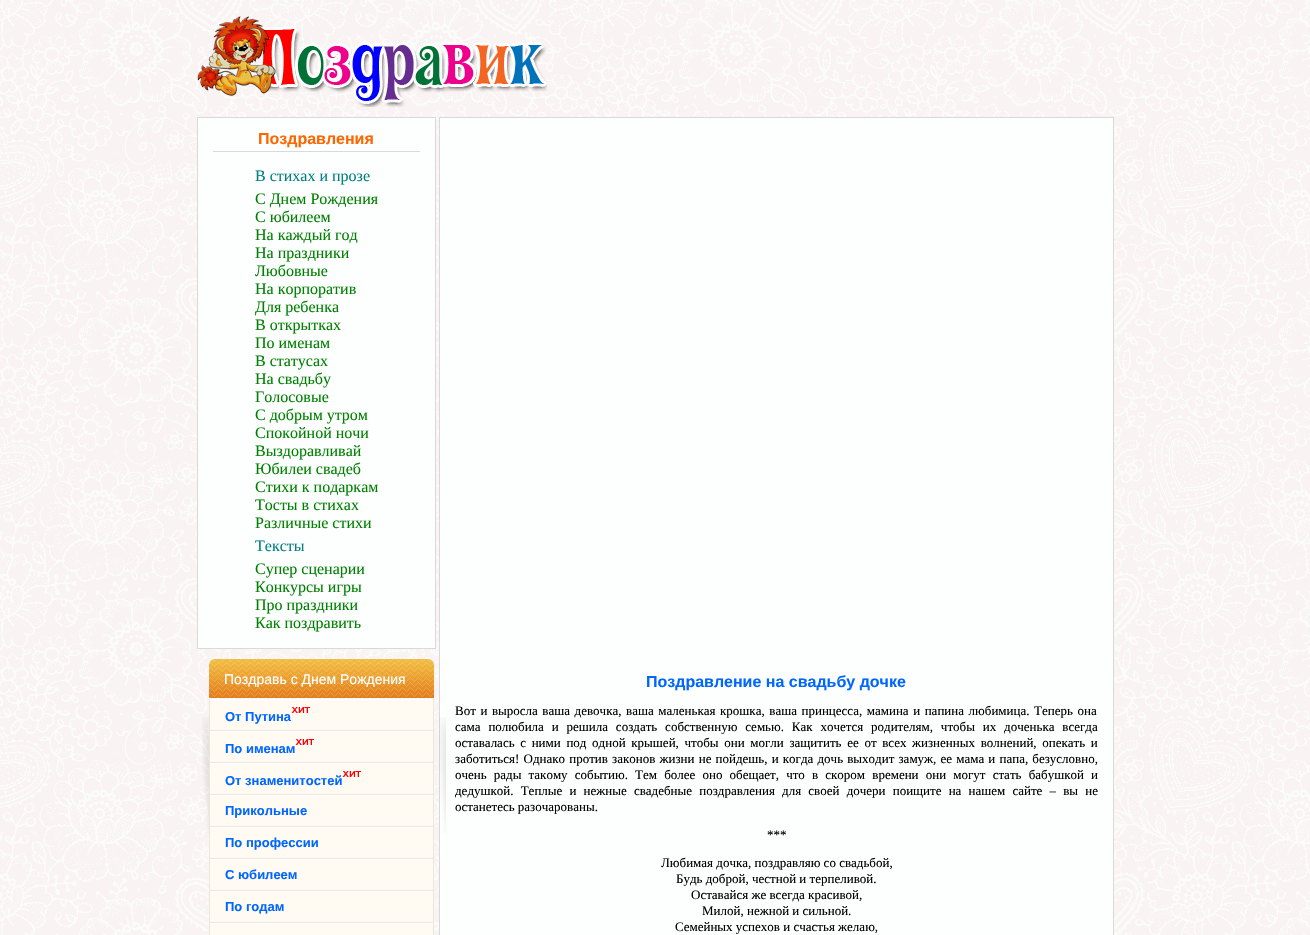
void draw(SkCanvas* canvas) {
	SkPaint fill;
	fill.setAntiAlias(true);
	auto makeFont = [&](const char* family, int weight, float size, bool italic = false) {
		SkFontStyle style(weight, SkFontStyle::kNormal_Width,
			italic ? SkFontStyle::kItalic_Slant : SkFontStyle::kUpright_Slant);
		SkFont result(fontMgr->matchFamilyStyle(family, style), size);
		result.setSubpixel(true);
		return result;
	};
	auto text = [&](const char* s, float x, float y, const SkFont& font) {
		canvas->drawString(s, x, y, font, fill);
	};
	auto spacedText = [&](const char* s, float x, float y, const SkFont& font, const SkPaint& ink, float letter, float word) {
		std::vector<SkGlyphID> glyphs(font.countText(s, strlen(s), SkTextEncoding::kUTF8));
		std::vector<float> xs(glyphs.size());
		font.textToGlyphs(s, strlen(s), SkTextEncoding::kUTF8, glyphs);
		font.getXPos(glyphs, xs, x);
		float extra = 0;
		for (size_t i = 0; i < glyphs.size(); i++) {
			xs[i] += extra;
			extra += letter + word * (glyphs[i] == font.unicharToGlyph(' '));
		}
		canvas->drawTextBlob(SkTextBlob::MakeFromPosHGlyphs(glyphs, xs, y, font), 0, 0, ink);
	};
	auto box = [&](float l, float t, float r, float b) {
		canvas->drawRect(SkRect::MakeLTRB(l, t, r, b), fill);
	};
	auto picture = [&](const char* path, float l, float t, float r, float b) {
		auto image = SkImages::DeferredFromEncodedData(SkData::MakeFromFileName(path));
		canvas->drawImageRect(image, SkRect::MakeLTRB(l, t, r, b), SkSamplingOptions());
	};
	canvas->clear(0xFFFFFFFF);
	picture("image0.png", 0, 0, 1310, 935);
	picture("image1.png", 197, 16, 547, 107);
	fill.setColor(0xFFFCFFFE);
	canvas->drawRect(SkRect::MakeLTRB(197.5f, 117.5f, 435.5f, 648.5f), fill);
	fill.setStyle(SkPaint::kStroke_Style);
	fill.setStrokeWidth(1);
	fill.setColor(0xFFD9D9D9);
	canvas->drawRect(SkRect::MakeLTRB(197.5f, 117.5f, 435.5f, 648.5f), fill);
	fill.setStyle(SkPaint::kFill_Style);
	box(213, 151, 420, 152);
	picture("image2.png", 209, 659, 434, 698);
	fill.setColor(0xFFECE6DC);
	box(433, 699, 434, 935);
	box(209, 699, 210, 935);
	picture("image3.png", 202, 717, 209, 833);
	fill.setColor(0xFFFFFBF3);
	box(210, 700, 433, 730);
	fill.setColor(0xFFFFFFFF);
	box(210, 699, 433, 700);
	fill.setColor(0xFFECE6DC);
	box(210, 730, 433, 731);
	picture("image4.png", 291, 707, 311, 713);
	fill.setColor(0xFFFCFFFE);
	canvas->drawRect(SkRect::MakeLTRB(439.5f, 117.5f, 1113.5f, 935.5f), fill);
	fill.setStyle(SkPaint::kStroke_Style);
	fill.setColor(0xFFD9D9D9);
	canvas->drawRect(SkRect::MakeLTRB(439.5f, 117.5f, 1113.5f, 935.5f), fill);
	picture("image5.png", 439, 717, 446, 833);
	fill.setStyle(SkPaint::kFill_Style);
	fill.setColor(0xFFFFFBF3);
	box(210, 732, 433, 762);
	fill.setColor(0xFFFFFFFF);
	box(210, 731, 433, 732);
	fill.setColor(0xFFECE6DC);
	box(210, 762, 433, 763);
	picture("image4.png", 295, 739, 315, 745);
	fill.setColor(0xFFFFFBF3);
	box(210, 764, 433, 794);
	fill.setColor(0xFFFFFFFF);
	box(210, 763, 433, 764);
	fill.setColor(0xFFECE6DC);
	box(210, 794, 433, 795);
	picture("image4.png", 342, 771, 362, 777);
	fill.setColor(0xFFFFFBF3);
	box(210, 796, 433, 826);
	fill.setColor(0xFFFFFFFF);
	box(210, 795, 433, 796);
	fill.setColor(0xFFECE6DC);
	box(210, 826, 433, 827);
	fill.setColor(0xFFFFFBF3);
	box(210, 828, 433, 858);
	fill.setColor(0xFFFFFFFF);
	box(210, 827, 433, 828);
	fill.setColor(0xFFECE6DC);
	box(210, 858, 433, 859);
	fill.setColor(0xFFFFFBF3);
	box(210, 860, 433, 890);
	fill.setColor(0xFFFFFFFF);
	box(210, 859, 433, 860);
	fill.setColor(0xFFECE6DC);
	box(210, 890, 433, 891);
	fill.setColor(0xFFFFFBF3);
	box(210, 892, 433, 922);
	fill.setColor(0xFFFFFFFF);
	box(210, 891, 433, 892);
	fill.setColor(0xFFECE6DC);
	box(210, 922, 433, 923);
	fill.setColor(0xFFFFFBF3);
	box(210, 924, 433, 935);
	fill.setColor(0xFFFFFFFF);
	box(210, 923, 433, 924);
	auto font1 = makeFont("Liberation Sans", 700, 16);
	fill.setColor(0xFFFF6600);
	text("Поздравления", 258, 144, font1);
	auto font2 = makeFont("Liberation Serif", 400, 16);
	fill.setColor(0xFF008080);
	text("В стихах и прозе", 255, 181, font2);
	fill.setColor(0xFF008000);
	text("С Днем Рождения", 255, 204, font2);
	text("С юбилеем", 255, 222, font2);
	text("На каждый год", 255, 240, font2);
	text("На праздники", 255, 258, font2);
	text("Любовные", 255, 276, font2);
	text("На корпоратив", 255, 294, font2);
	text("Для ребенка", 255, 312, font2);
	text("В открытках", 255, 330, font2);
	text("По именам", 255, 348, font2);
	text("В статусах", 255, 366, font2);
	text("На свадьбу", 255, 384, font2);
	text("Голосовые", 255, 402, font2);
	text("С добрым утром", 255, 420, font2);
	text("Спокойной ночи", 255, 438, font2);
	text("Выздоравливай", 255, 456, font2);
	text("Юбилеи свадеб", 255, 474, font2);
	text("Стихи к подаркам", 255, 492, font2);
	text("Тосты в стихах", 255, 510, font2);
	text("Различные стихи", 255, 528, font2);
	fill.setColor(0xFF008080);
	text("Тексты", 255, 551, font2);
	fill.setColor(0xFF008000);
	text("Супер сценарии", 255, 574, font2);
	text("Конкурсы игры", 255, 592, font2);
	text("Про праздники", 255, 610, font2);
	text("Как поздравить", 255, 628, font2);
	auto font3 = makeFont("Liberation Sans", 400, 14);
	fill.setColor(0xFFFFFFFF);
	text("Поздравь с Днем Рождения", 224, 684, font3);
	auto font4 = makeFont("Liberation Sans", 700, 13);
	fill.setColor(0xFF0066FF);
	text("От Путина", 225, 721, font4);
	text("По именам", 225, 753, font4);
	text("От знаменитостей", 225, 785, font4);
	text("Прикольные", 225, 815, font4);
	text("По профессии", 225, 847, font4);
	text("С юбилеем", 225, 879, font4);
	text("По годам", 225, 911, font4);
	text("Поздравление на свадьбу дочке", 646, 687, font1);
	auto font5 = makeFont("Liberation Serif", 400, 13);
	fill.setColor(0xFF000000);
	spacedText("Вот и выросла ваша девочка, ваша маленькая крошка, ваша принцесса, мамина и папина любимица. Теперь она", 455, 715, font5, fill, 0, 1.3f);
	spacedText("сама полюбила и решила создать собственную семью. Как хочется родителям, чтобы их доченька всегда", 455, 731, font5, fill, 0, 4.6f);
	spacedText("оставалась с ними под одной крышей, чтобы они могли защитить ее от всех жизненных волнений, опекать и", 455, 747, font5, fill, 0, 2.4f);
	spacedText("заботиться! Однако против законов жизни не пойдешь, и когда дочь выходит замуж, ее мама и папа, безусловно,", 455, 763, font5, fill, 0, 0.9f);
	spacedText("очень рады такому событию. Тем более оно обещает, что в скором времени они могут стать бабушкой и", 455, 779, font5, fill, 0, 3.9f);
	spacedText("дедушкой. Теплые и нежные свадебные поздравления для своей дочери поищите на нашем сайте – вы не", 455, 795, font5, fill, 0, 3.9f);
	text("останетесь разочарованы.", 455, 811, font5);
	text("***", 767, 839, font5);
	text("Любимая дочка, поздравляю со свадьбой,", 661, 867, font5);
	text("Будь доброй, честной и терпеливой.", 676, 883, font5);
	text("Оставайся же всегда красивой,", 691, 899, font5);
	text("Милой, нежной и сильной.", 702, 915, font5);
	text("Семейных успехов и счастья желаю,", 675, 931, font5);
}
